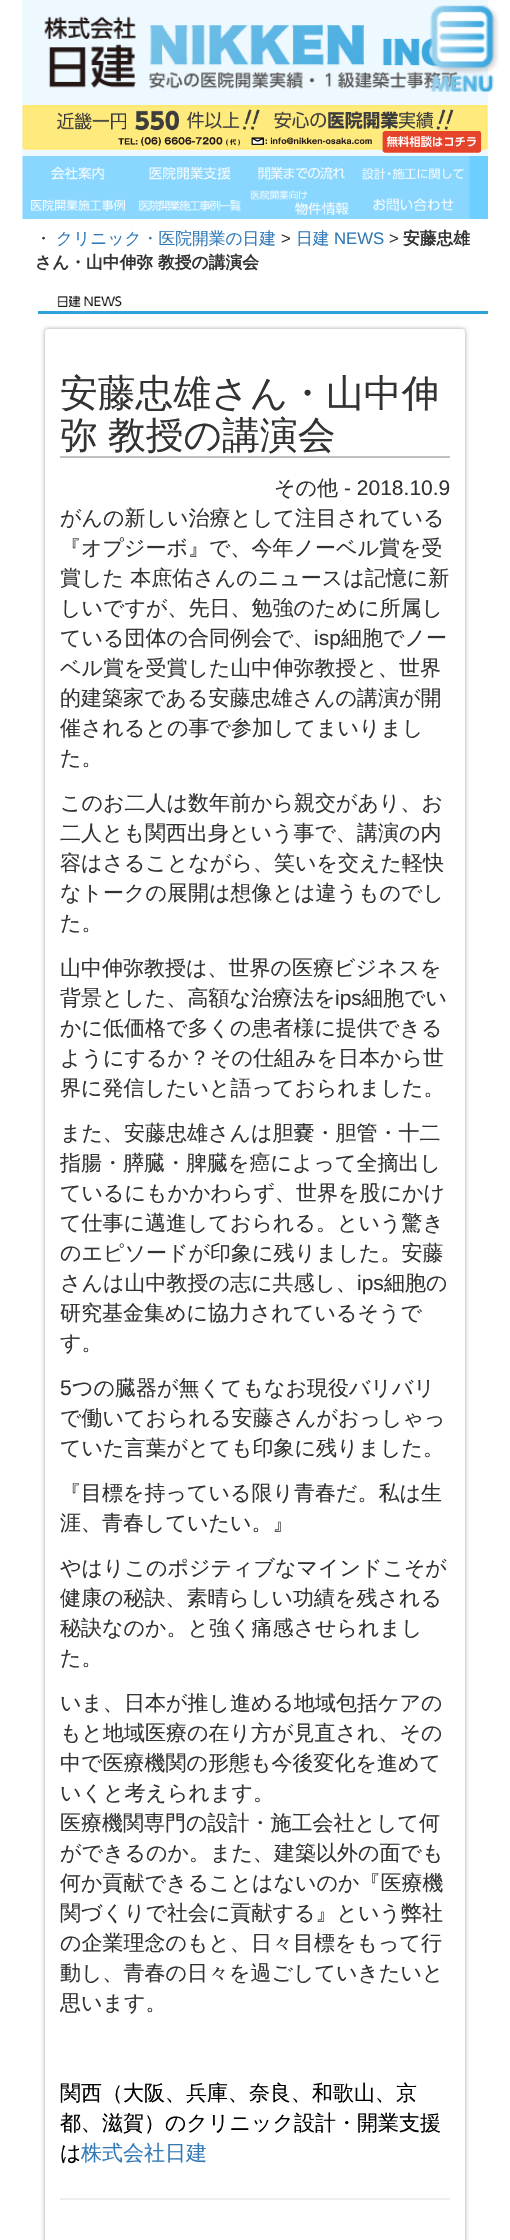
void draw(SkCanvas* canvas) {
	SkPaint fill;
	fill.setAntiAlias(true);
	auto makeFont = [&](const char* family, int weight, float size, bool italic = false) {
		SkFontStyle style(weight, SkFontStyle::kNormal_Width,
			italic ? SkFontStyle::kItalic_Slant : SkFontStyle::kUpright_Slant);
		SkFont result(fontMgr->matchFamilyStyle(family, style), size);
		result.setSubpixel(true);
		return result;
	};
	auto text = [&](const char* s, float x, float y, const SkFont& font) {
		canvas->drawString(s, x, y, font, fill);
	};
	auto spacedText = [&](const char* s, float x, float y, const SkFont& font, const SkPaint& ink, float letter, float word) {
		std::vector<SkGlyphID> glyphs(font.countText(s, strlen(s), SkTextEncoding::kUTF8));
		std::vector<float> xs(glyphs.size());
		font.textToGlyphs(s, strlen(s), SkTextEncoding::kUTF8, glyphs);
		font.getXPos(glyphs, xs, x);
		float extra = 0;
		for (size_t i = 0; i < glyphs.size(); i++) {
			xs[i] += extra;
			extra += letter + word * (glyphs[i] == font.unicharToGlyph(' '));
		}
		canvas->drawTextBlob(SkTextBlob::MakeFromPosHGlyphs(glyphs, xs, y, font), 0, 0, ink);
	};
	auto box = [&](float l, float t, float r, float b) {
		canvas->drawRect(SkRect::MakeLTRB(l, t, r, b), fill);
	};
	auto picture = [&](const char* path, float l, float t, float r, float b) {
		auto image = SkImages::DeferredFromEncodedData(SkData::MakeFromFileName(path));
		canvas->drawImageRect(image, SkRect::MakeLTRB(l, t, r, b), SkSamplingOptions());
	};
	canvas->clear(0xFFFFFFFF);
	fill.setColor(0xFFEDF9FF);
	box(22, 0, 488, 219);
	picture("image0.png", 44, 16, 458, 89);
	picture("image1.png", 430, 5, 499, 92);
	picture("image2.png", 22, 105, 488, 153);
	fill.setColor(0xFF6DCFFF);
	box(23, 156, 488, 219);
	picture("image3.png", 22, 156, 134, 188);
	picture("image4.png", 133, 156, 246, 188);
	picture("image5.png", 246, 156, 357, 188);
	picture("image6.png", 357, 156, 470, 188);
	picture("image7.png", 22, 187, 134, 219);
	picture("image8.png", 133, 187, 246, 219);
	picture("image9.png", 246, 187, 357, 219);
	picture("image10.png", 357, 187, 470, 219);
	fill.setColor(0xFF2EA1DB);
	box(38, 311, 488, 314);
	picture("image11.png", 57, 295, 122, 308);
	canvas->save();
	canvas->clipPath(SkPathBuilder(SkPathFillType::kEvenOdd).moveTo(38, 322).lineTo(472, 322).lineTo(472, 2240).lineTo(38, 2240).close().moveTo(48, 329).lineTo(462, 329).cubicTo(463.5f, 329, 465, 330.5f, 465, 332).lineTo(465, 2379).cubicTo(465, 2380.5f, 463.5f, 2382, 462, 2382).lineTo(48, 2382).cubicTo(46.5f, 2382, 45, 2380.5f, 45, 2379).lineTo(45, 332).cubicTo(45, 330.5f, 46.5f, 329, 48, 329).close().detach(), true);
	fill.setColor(0xFFA0A0A0);
	fill.setMaskFilter(SkMaskFilter::MakeBlur(kNormal_SkBlurStyle, 2));
	canvas->drawRoundRect(SkRect::MakeLTRB(45, 329, 465, 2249), 3, 3, fill);
	fill.setMaskFilter(nullptr);
	canvas->restore();
	fill.setColor(0xFFC0C0C0);
	box(60, 456, 450, 458);
	fill.setColor(0xFFEEEEEE);
	box(60, 2198, 450, 2200);
	auto font1 = makeFont("WenQuanYi Zen Hei", 500, 16.75f);
	fill.setColor(0xFF333333);
	text("・", 35, 244, font1);
	fill.setColor(0xFF337AB7);
	text("クリニック・医院開業の日建", 56, 244, font1);
	auto font2 = makeFont("Liberation Sans", 400, 16.75f);
	fill.setColor(0xFF333333);
	text(">", 281, 244, font2);
	fill.setColor(0xFF337AB7);
	text("日建", 296, 244, font1);
	text("NEWS", 334, 244, font2);
	fill.setColor(0xFF333333);
	text(">", 389, 244, font2);
	auto font3 = makeFont("WenQuanYi Zen Hei", 700, 16.75f);
	text("安藤忠雄", 403, 244, font3);
	text("さん・山中伸弥 教授の講演会", 35, 268, font3);
	auto font4 = makeFont("WenQuanYi Zen Hei", 500, 37.75f);
	text("安藤忠雄さん・山中伸", 60, 406, font4);
	spacedText("弥 教授の講演会", 60, 448, font4, fill, 0, -1);
	auto font5 = makeFont("WenQuanYi Zen Hei", 500, 21);
	text("その他", 274, 495, font5);
	auto font6 = makeFont("Liberation Sans", 400, 21);
	text("- 2018.10.9", 344, 495, font6);
	text("がんの新しい治療として注目されている", 60, 525, font5);
	text("『オプジーボ』で、今年ノーベル賞を受", 60, 555, font5);
	text("賞した 本庶佑さんのニュースは記憶に新", 60, 585, font5);
	text("しいですが、先日、勉強のために所属し", 60, 615, font5);
	text("ている団体の合同例会で、", 60, 645, font5);
	text("isp", 314, 645, font6);
	text("細胞でノー", 341, 645, font5);
	text("ベル賞を受賞した山中伸弥教授と、世界", 60, 675, font5);
	text("的建築家である安藤忠雄さんの講演が開", 60, 705, font5);
	text("催されるとの事で参加してまいりまし", 60, 735, font5);
	text("た。", 60, 765, font5);
	text("このお二人は数年前から親交があり、お", 60, 810, font5);
	text("二人とも関西出身という事で、講演の内", 60, 840, font5);
	text("容はさることながら、笑いを交えた軽快", 60, 870, font5);
	text("なトークの展開は想像とは違うものでし", 60, 900, font5);
	text("た。", 60, 930, font5);
	text("山中伸弥教授は、世界の医療ビジネスを", 60, 975, font5);
	text("背景とした、高額な治療法を", 60, 1005, font5);
	text("ips", 335, 1005, font6);
	text("細胞でい", 362, 1005, font5);
	text("かに低価格で多くの患者様に提供できる", 60, 1035, font5);
	text("ようにするか？その仕組みを日本から世", 60, 1065, font5);
	text("界に発信したいと語っておられました。", 60, 1095, font5);
	text("また、安藤忠雄さんは胆嚢・胆管・十二", 60, 1140, font5);
	text("指腸・膵臓・脾臓を癌によって全摘出し", 60, 1170, font5);
	text("ているにもかかわらず、世界を股にかけ", 60, 1200, font5);
	text("て仕事に邁進しておられる。という驚き", 60, 1230, font5);
	text("のエピソードが印象に残りました。安藤", 60, 1260, font5);
	text("さんは山中教授の志に共感し、", 60, 1290, font5);
	text("ips", 357, 1290, font6);
	text("細胞の", 384, 1290, font5);
	text("研究基金集めに協力されているそうで", 60, 1320, font5);
	text("す。", 60, 1350, font5);
	text("5", 60, 1395, font6);
	text("つの臓器が無くてもなお現役バリバリ", 72, 1395, font5);
	text("で働いておられる安藤さんがおっしゃっ", 60, 1425, font5);
	text("ていた言葉がとても印象に残りました。", 60, 1455, font5);
	text("『目標を持っている限り青春だ。私は生", 60, 1500, font5);
	text("涯、青春していたい。』", 60, 1530, font5);
	text("やはりこのポジティブなマインドこそが", 60, 1575, font5);
	text("健康の秘訣、素晴らしい功績を残される", 60, 1605, font5);
	text("秘訣なのか。と強く痛感させられまし", 60, 1635, font5);
	text("た。", 60, 1665, font5);
	text("いま、日本が推し進める地域包括ケアの", 60, 1710, font5);
	text("もと地域医療の在り方が見直され、その", 60, 1740, font5);
	text("中で医療機関の形態も今後変化を進めて", 60, 1770, font5);
	text("いくと考えられます。", 60, 1800, font5);
	text("医療機関専門の設計・施工会社として何", 60, 1830, font5);
	text("ができるのか。また、建築以外の面でも", 60, 1860, font5);
	text("何か貢献できることはないのか『医療機", 60, 1890, font5);
	text("関づくりで社会に貢献する』という弊社", 60, 1920, font5);
	text("の企業理念のもと、日々目標をもって行", 60, 1950, font5);
	text("動し、青春の日々を過ごしていきたいと", 60, 1980, font5);
	text("思います。", 60, 2010, font5);
	fill.setColor(0xFF000000);
	text("関西（大阪、兵庫、奈良、和歌山、京", 60, 2100, font5);
	text("都、滋賀）のクリニック設計・開業支援", 60, 2130, font5);
	text("は", 60, 2160, font5);
	fill.setColor(0xFF337AB7);
	text("株式会社日建", 81, 2160, font5);
}
